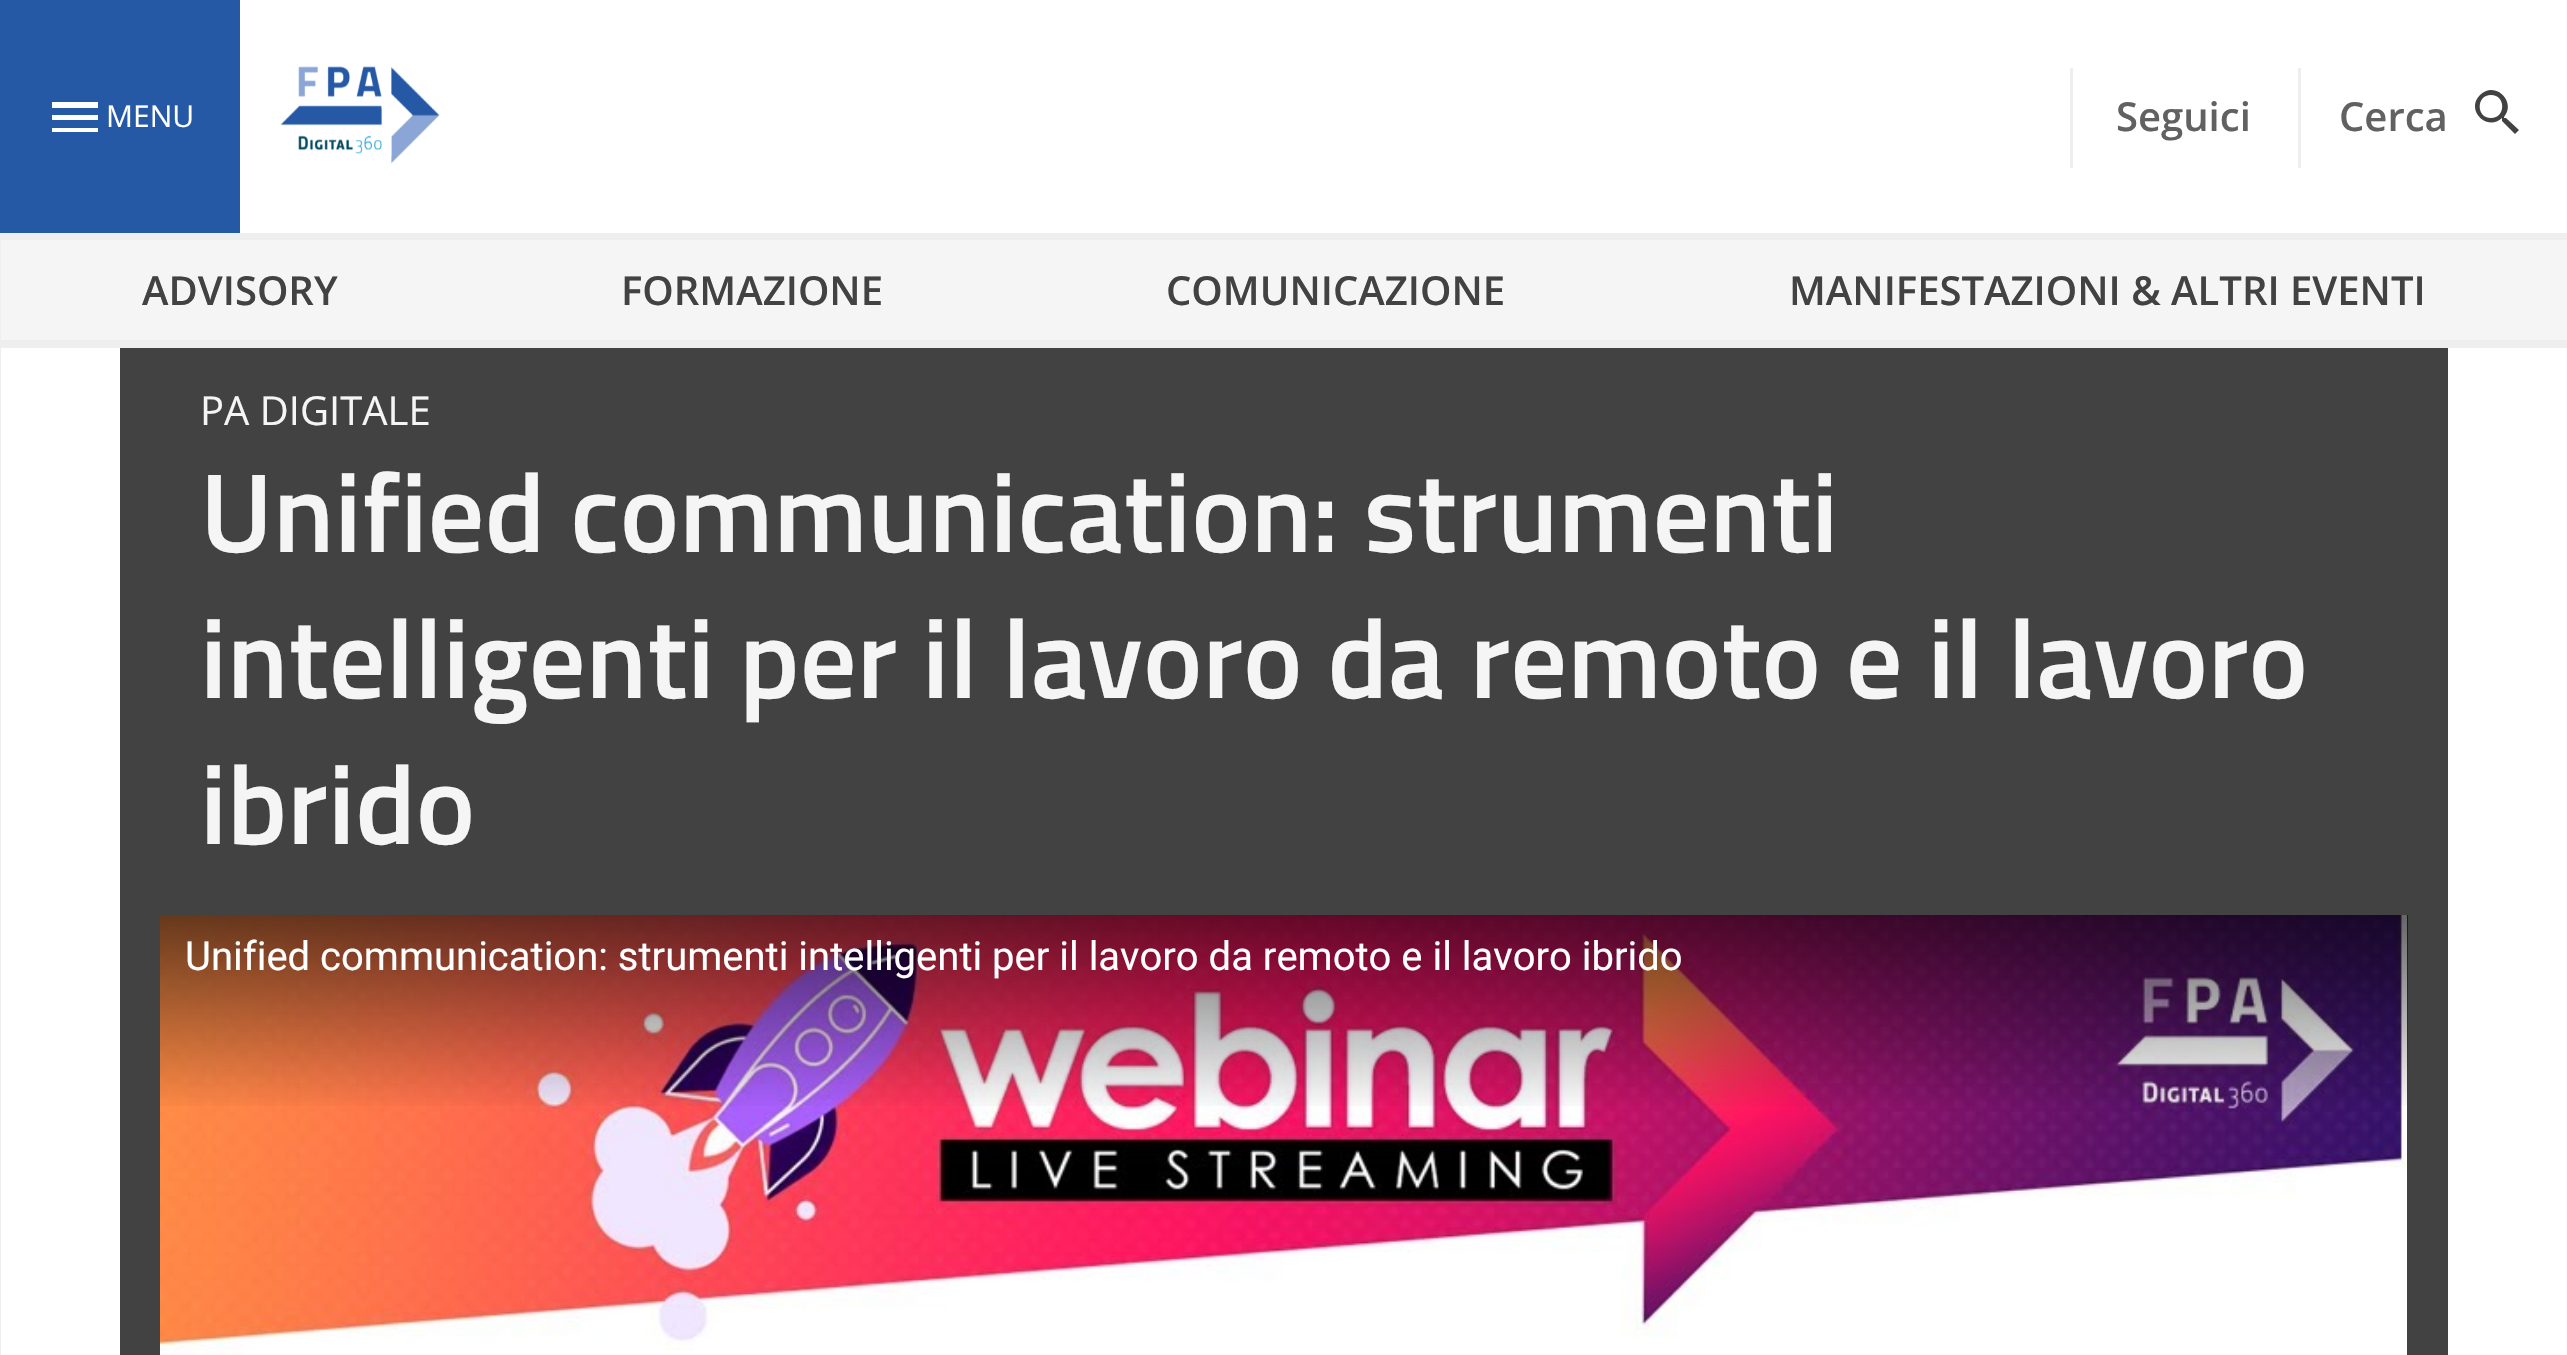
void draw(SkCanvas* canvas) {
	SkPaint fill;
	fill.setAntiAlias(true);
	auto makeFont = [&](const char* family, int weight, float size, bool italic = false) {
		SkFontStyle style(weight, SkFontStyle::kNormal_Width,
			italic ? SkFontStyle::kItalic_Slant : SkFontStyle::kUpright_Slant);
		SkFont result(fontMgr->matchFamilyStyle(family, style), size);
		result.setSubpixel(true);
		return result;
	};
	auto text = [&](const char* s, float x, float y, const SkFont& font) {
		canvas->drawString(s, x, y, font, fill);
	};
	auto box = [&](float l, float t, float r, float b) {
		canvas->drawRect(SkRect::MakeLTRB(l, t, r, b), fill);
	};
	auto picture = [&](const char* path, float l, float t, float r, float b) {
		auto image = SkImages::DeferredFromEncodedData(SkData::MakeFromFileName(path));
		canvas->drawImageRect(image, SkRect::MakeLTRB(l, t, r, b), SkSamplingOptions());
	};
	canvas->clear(0xFFFFFFFF);
	fill.setColor(0xFFEEEEEE);
	box(0, 233, 2567, 240);
	fill.setColor(0xFF2659A5);
	box(0, 0, 240, 233);
	fill.setColor(0xFFFFFFFF);
	canvas->drawPath(SkPathBuilder().moveTo(52, 132).lineTo(98, 132).lineTo(98, 128).lineTo(52, 128).close().moveTo(52, 120).lineTo(98, 120).lineTo(98, 115).lineTo(52, 115).close().moveTo(52, 102).lineTo(52, 108).lineTo(98, 108).lineTo(98, 102).close().detach(), fill);
	picture("image0.png", 280, 66, 440, 164);
	fill.setColor(0xFFEEEEEE);
	box(2070, 68, 2073, 168);
	box(2298, 68, 2301, 168);
	fill.setColor(0xFF424242);
	canvas->drawPath(SkPathBuilder().moveTo(2506, 118).lineTo(2504, 118).lineTo(2504, 117).cubicTo(2517, 102, 2495, 80, 2480, 95).cubicTo(2465, 110, 2487, 132, 2502, 118).lineTo(2502, 119).lineTo(2502, 121).lineTo(2515, 134).lineTo(2519, 130).close().moveTo(2491, 118).cubicTo(2476, 118, 2476, 95, 2491, 95).cubicTo(2506, 95, 2506, 118, 2491, 118).close().detach(), fill);
	fill.setColor(0xFFF5F5F5);
	box(1, 240, 2567, 340);
	fill.setColor(0xFFEEEEEE);
	box(0, 340, 2567, 348);
	box(0, 240, 1, 1355);
	fill.setColor(0xFF424242);
	box(120, 348, 2448, 1355);
	fill.setColor(0xFF000000);
	box(2407, 915, 2408, 1355);
	picture("image1.png", 160, 915, 2408, 1355);
	{
		const SkColor colors[] = {0x99000000, 0x00000000};
		const float stops[] = {0, 1};
		const SkPoint ends[] = {{1284, 915}, {1284, 1113}};
		fill.setShader(SkGradientShader::MakeLinear(ends, colors, stops, 2, SkTileMode::kClamp));
		fill.setAlpha(255);
	}
	box(160, 915, 2408, 1106);
	auto font1 = makeFont("Open Sans", 400, 30);
	fill.setShader(nullptr);
	fill.setColor(0xFFFFFFFF);
	text("MENU", 106, 127, font1);
	auto font2 = makeFont("Open Sans", 600, 40);
	fill.setColor(0xFF616161);
	text("Seguici", 2116, 131, font2);
	text("Cerca", 2339, 131, font2);
	fill.setColor(0xFF424242);
	text("ADVISORY", 142, 305, font2);
	text("FORMAZIONE", 621, 305, font2);
	text("COMUNICAZIONE", 1166, 305, font2);
	text("MANIFESTAZIONI & ALTRI EVENTI", 1789, 305, font2);
	auto font3 = makeFont("Open Sans", 400, 40);
	fill.setColor(0xFFF5F5F5);
	text("PA DIGITALE", 200, 425, font3);
	auto font4 = makeFont("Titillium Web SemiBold", 600, 112.4f);
	text("Unified communication: strumenti", 200, 552, font4);
	text("intelligenti per il lavoro da remoto e il lavoro", 200, 698, font4);
	text("ibrido", 200, 844, font4);
	auto font5 = makeFont("Roboto", 400, 40);
	fill.setColor(0xFFFFFFFF);
	text("Unified communication: strumenti intelligenti per il lavoro da remoto e il lavoro ibrido", 185, 970, font5);
}
